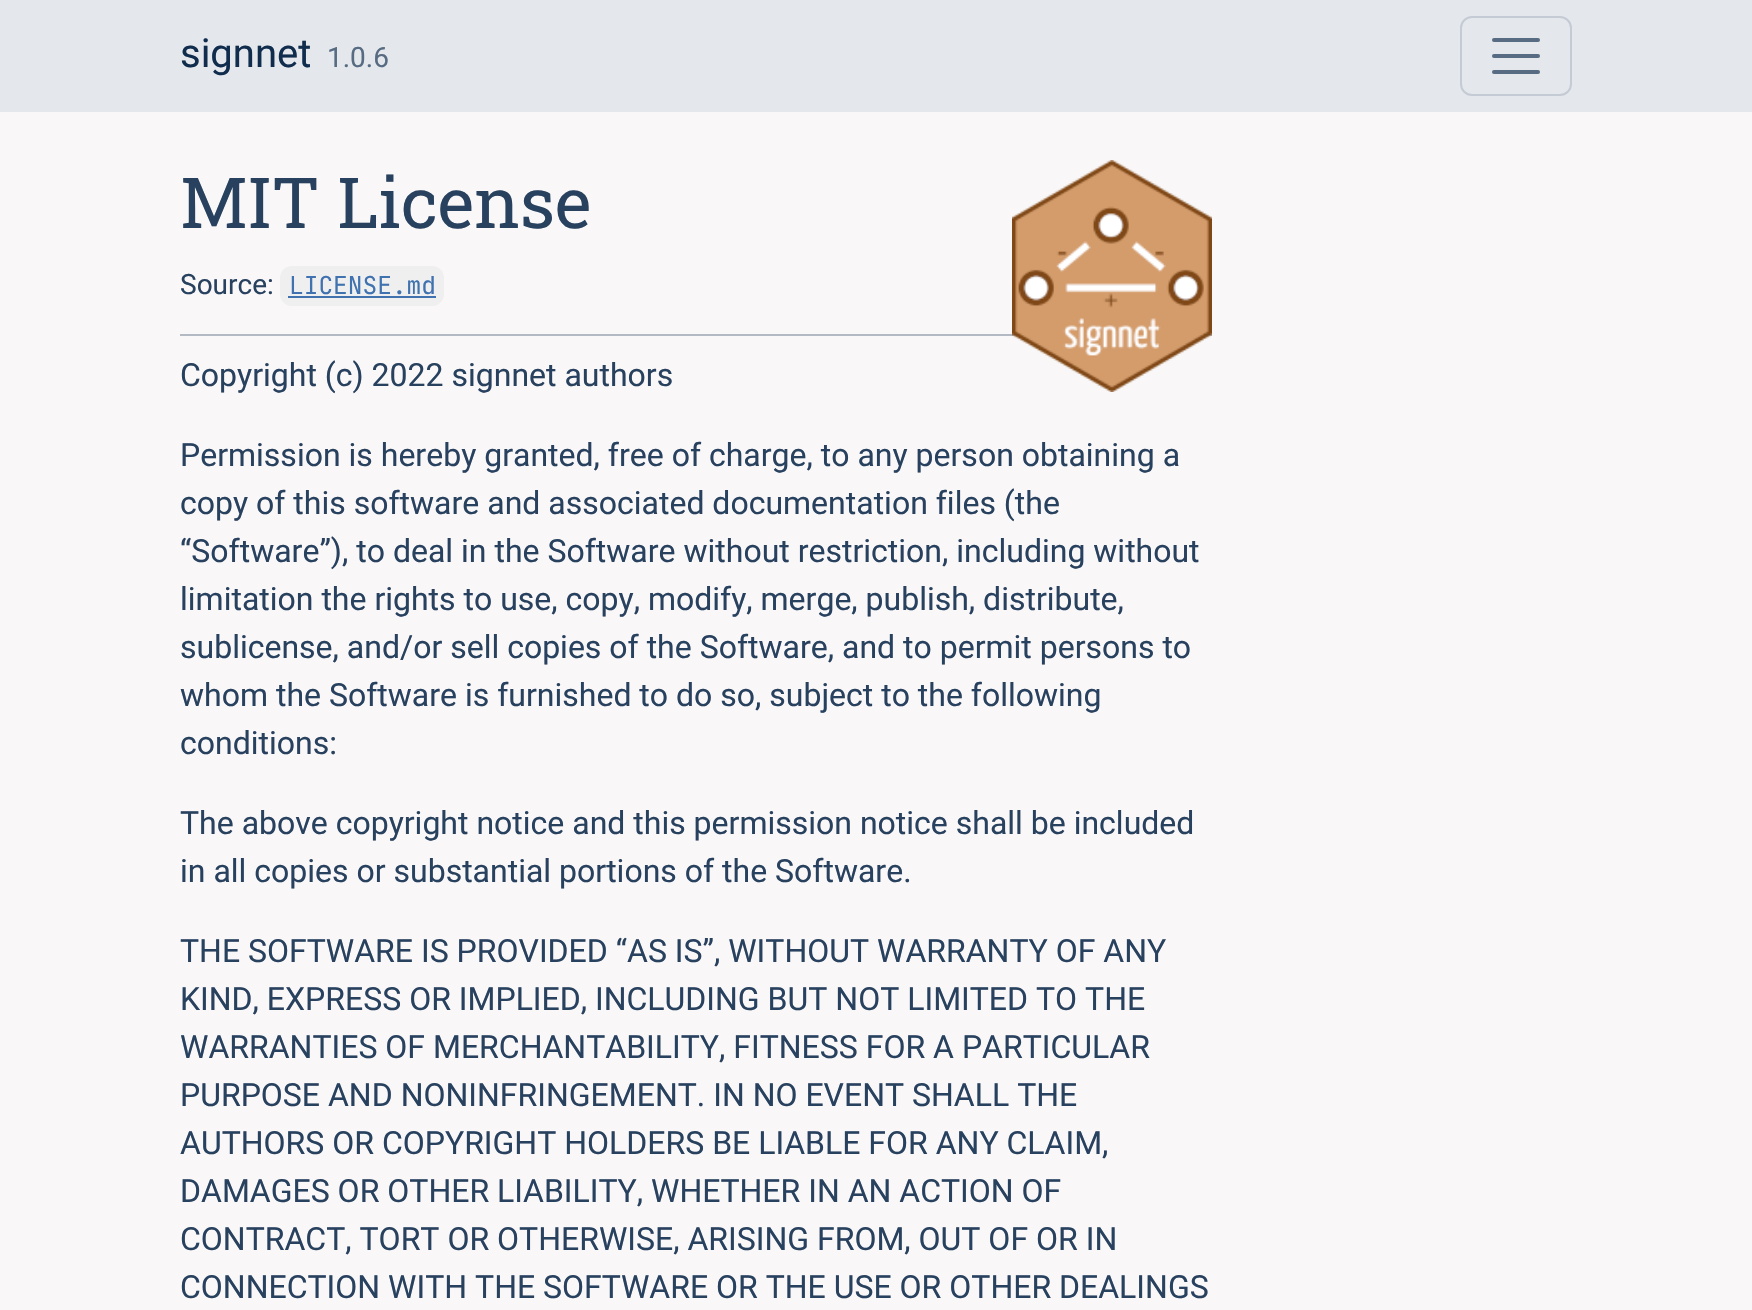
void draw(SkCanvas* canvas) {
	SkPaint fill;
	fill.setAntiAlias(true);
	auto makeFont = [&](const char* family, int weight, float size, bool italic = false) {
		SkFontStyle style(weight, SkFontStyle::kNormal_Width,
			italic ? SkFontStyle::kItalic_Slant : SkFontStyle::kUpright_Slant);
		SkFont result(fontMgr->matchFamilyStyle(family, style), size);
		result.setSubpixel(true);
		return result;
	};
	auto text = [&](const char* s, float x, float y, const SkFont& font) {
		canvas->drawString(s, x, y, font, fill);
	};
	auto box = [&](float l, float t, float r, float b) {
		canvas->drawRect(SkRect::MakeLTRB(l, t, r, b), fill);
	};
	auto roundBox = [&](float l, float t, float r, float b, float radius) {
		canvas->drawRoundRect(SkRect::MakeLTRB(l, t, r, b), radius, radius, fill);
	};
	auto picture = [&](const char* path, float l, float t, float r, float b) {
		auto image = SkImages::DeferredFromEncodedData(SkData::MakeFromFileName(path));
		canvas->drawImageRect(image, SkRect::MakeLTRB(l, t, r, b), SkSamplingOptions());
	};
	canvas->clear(0xFFF9F7F7);
	fill.setColor(0xFFE4E7EC);
	box(0, 0, 1752, 112);
	fill.setStyle(SkPaint::kStroke_Style);
	fill.setStrokeWidth(2);
	fill.setColor(0xFFC4CBD4);
	canvas->drawRoundRect(SkRect::MakeLTRB(1461, 17, 1571, 95), 11, 11, fill);
	fill.setStrokeWidth(4);
	fill.setStrokeCap(SkPaint::kRound_Cap);
	fill.setColor(0xFF576B82);
	canvas->drawPath(SkPathBuilder().moveTo(1494, 40).lineTo(1538, 40).moveTo(1494, 56).lineTo(1538, 56).moveTo(1494, 72).lineTo(1538, 72).detach(), fill);
	fill.setStyle(SkPaint::kFill_Style);
	fill.setColor(0xFFB3BAC4);
	box(180, 334, 1212, 336);
	picture("image0.png", 1012, 160, 1212, 392);
	fill.setColor(0xFFF0EFF0);
	roundBox(280, 266, 444, 306, 12);
	fill.setColor(0xFF3F72AF);
	box(288, 296, 436, 298);
	auto font1 = makeFont("Roboto", 400, 40);
	fill.setColor(0xFF112D4E);
	text("signnet", 180, 67, font1);
	auto font2 = makeFont("Roboto", 400, 28);
	fill.setColor(0xFF576B82);
	text("1.0.6", 327, 67, font2);
	auto font3 = makeFont("Roboto Slab", 400, 70.25f);
	fill.setColor(0xFF28415F);
	text("MIT License", 180, 228, font3);
	text("Source:", 180, 294, font2);
	auto font4 = makeFont("JetBrains Mono", 400, 24.5f);
	fill.setColor(0xFF3F72AF);
	text("LICENSE.md", 289, 294, font4);
	auto font5 = makeFont("Roboto", 400, 32);
	fill.setColor(0xFF28415F);
	text("Copyright (c) 2022 signnet authors", 180, 386, font5);
	text("Permission is hereby granted, free of charge, to any person obtaining a", 180, 466, font5);
	text("copy of this software and associated documentation files (the", 180, 514, font5);
	text("“Software”), to deal in the Software without restriction, including without", 180, 562, font5);
	text("limitation the rights to use, copy, modify, merge, publish, distribute,", 180, 610, font5);
	text("sublicense, and/or sell copies of the Software, and to permit persons to", 180, 658, font5);
	text("whom the Software is furnished to do so, subject to the following", 180, 706, font5);
	text("conditions:", 180, 754, font5);
	text("The above copyright notice and this permission notice shall be included", 180, 834, font5);
	text("in all copies or substantial portions of the Software.", 180, 882, font5);
	text("THE SOFTWARE IS PROVIDED “AS IS”, WITHOUT WARRANTY OF ANY", 180, 962, font5);
	text("KIND, EXPRESS OR IMPLIED, INCLUDING BUT NOT LIMITED TO THE", 180, 1010, font5);
	text("WARRANTIES OF MERCHANTABILITY, FITNESS FOR A PARTICULAR", 180, 1058, font5);
	text("PURPOSE AND NONINFRINGEMENT. IN NO EVENT SHALL THE", 180, 1106, font5);
	text("AUTHORS OR COPYRIGHT HOLDERS BE LIABLE FOR ANY CLAIM,", 180, 1154, font5);
	text("DAMAGES OR OTHER LIABILITY, WHETHER IN AN ACTION OF", 180, 1202, font5);
	text("CONTRACT, TORT OR OTHERWISE, ARISING FROM, OUT OF OR IN", 180, 1250, font5);
	text("CONNECTION WITH THE SOFTWARE OR THE USE OR OTHER DEALINGS", 180, 1298, font5);
}
